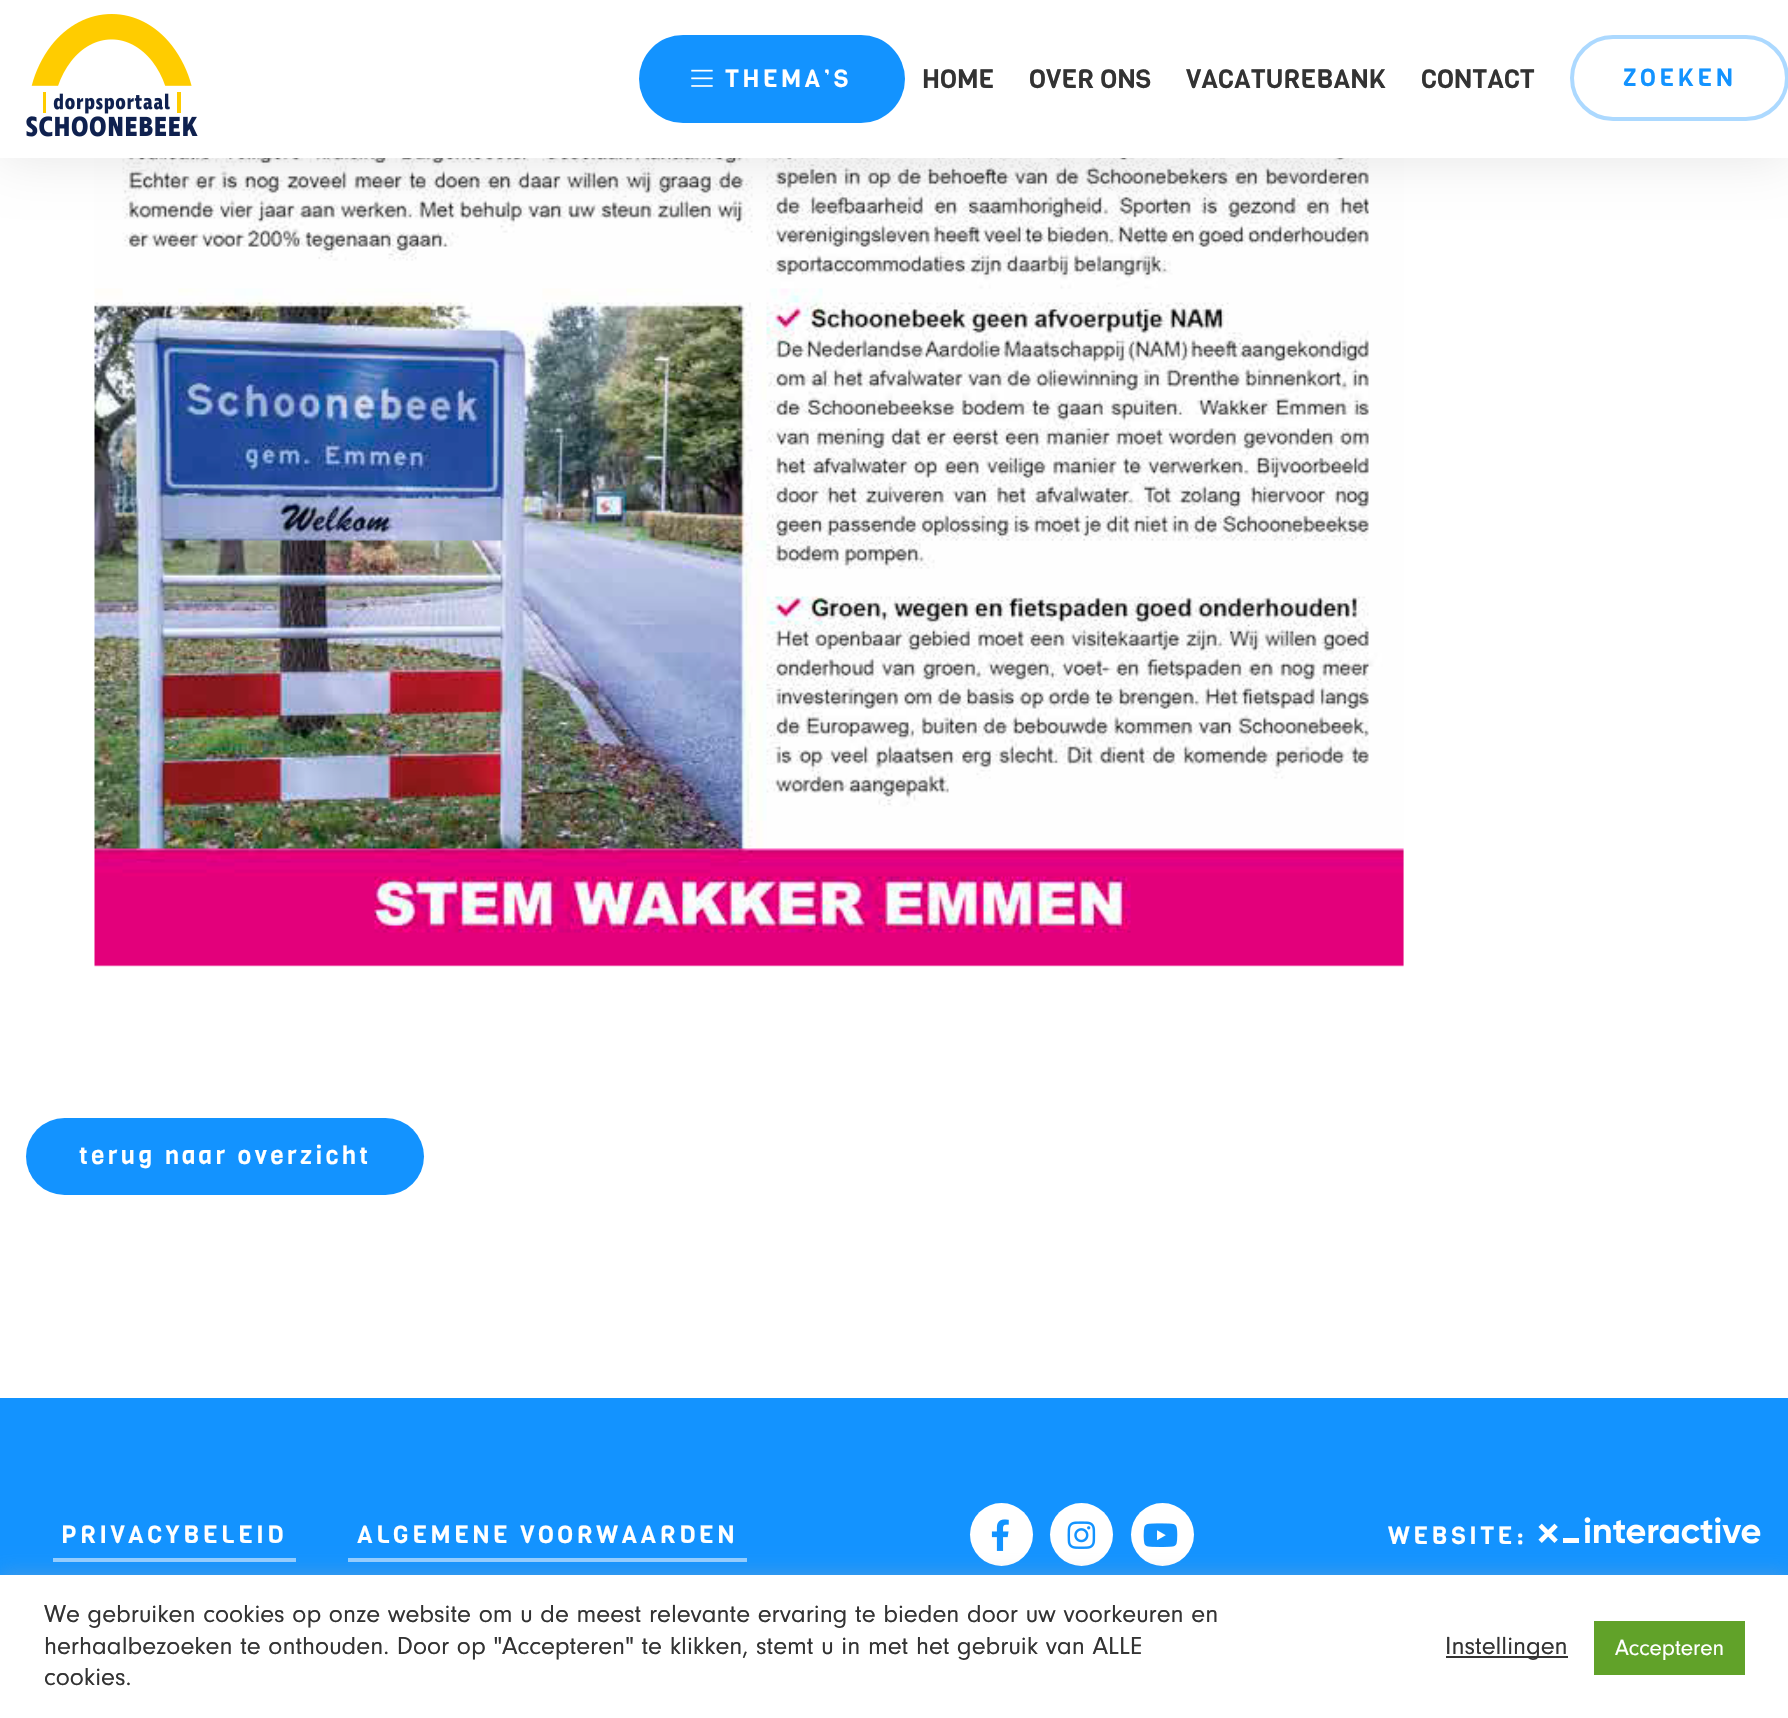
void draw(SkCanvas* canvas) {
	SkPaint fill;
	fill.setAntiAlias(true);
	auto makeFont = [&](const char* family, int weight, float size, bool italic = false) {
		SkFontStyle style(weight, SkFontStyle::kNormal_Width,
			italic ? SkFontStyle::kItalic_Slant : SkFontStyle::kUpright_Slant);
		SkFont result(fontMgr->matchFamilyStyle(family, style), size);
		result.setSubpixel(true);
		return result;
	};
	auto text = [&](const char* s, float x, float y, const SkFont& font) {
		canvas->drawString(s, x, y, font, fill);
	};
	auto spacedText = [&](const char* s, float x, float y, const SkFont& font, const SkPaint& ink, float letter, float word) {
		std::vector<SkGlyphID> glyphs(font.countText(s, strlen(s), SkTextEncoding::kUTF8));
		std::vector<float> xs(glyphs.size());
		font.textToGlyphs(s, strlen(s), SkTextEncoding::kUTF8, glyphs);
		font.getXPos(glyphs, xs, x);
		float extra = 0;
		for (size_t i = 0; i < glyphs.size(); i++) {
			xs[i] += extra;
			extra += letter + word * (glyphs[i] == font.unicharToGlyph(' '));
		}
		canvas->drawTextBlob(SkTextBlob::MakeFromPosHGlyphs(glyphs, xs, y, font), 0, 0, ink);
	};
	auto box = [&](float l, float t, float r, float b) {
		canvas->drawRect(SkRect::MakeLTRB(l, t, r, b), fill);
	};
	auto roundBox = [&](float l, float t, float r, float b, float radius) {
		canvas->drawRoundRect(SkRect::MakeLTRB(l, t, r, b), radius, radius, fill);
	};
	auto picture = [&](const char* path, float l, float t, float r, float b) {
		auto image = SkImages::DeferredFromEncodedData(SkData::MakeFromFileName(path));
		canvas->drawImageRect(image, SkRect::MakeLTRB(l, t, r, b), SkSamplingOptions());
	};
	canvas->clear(0xFF1393FF);
	fill.setColor(0xFFFFFFFF);
	box(0, 158, 1788, 1398);
	picture("image2.png", 94, 158, 1404, 967);
	fill.setColor(0x1A000000);
	fill.setMaskFilter(SkMaskFilter::MakeBlur(kNormal_SkBlurStyle, 26));
	canvas->drawRect(SkRect::MakeLTRB(0, 0, 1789, 158), fill);
	fill.setMaskFilter(nullptr);
	fill.setColor(0xFFFFFFFF);
	box(0, 0, 1788, 158);
	picture("image0.png", 26, 14, 198, 137);
	fill.setColor(0xFF1393FF);
	roundBox(639, 35, 905, 123, 44);
	picture("image1.png", 691, 69, 713, 87);
	fill.setStyle(SkPaint::kStroke_Style);
	fill.setStrokeWidth(4);
	fill.setColor(0xFFACD9FF);
	canvas->drawRoundRect(SkRect::MakeLTRB(1572, 37, 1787, 119), 41, 41, fill);
	fill.setStyle(SkPaint::kFill_Style);
	fill.setColor(0xFF1393FF);
	roundBox(26, 1118, 424, 1195, 38.5f);
	fill.setColor(0xFF93CDFF);
	box(53, 1558, 296, 1562);
	box(348, 1558, 747, 1562);
	fill.setColor(0xFFFFFFFF);
	canvas->drawCircle(1001.5f, 1534.5f, 31.5f, fill);
	picture("image3.png", 991, 1519, 1009, 1551);
	canvas->drawCircle(1081.5f, 1534.5f, 31.5f, fill);
	picture("image4.png", 1067, 1521, 1096, 1549);
	canvas->drawCircle(1162.5f, 1534.5f, 31.5f, fill);
	picture("image5.png", 1143, 1523, 1178, 1547);
	picture("image6.png", 1538, 1517, 1761, 1544);
	fill.setColor(0x4DACABAB);
	fill.setMaskFilter(SkMaskFilter::MakeBlur(kNormal_SkBlurStyle, 9));
	canvas->drawRect(SkRect::MakeLTRB(0, 1573, 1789, 1717), fill);
	fill.setMaskFilter(nullptr);
	fill.setColor(0xFFFFFFFF);
	box(0, 1575, 1788, 1718);
	fill.setColor(0xFF333333);
	box(1446, 1656, 1568, 1658);
	fill.setColor(0xFF61A229);
	box(1594, 1621, 1745, 1675);
	auto font1 = makeFont("Viga", 400, 24.5f);
	fill.setColor(0xFFFFFFFF);
	spacedText("THEMA’S", 725, 87, font1, fill, 3.5f, 0);
	auto font2 = makeFont("Viga", 400, 26.25f);
	fill.setColor(0xFF333333);
	text("HOME", 922, 88, font2);
	text("OVER ONS", 1029, 88, font2);
	text("VACATUREBANK", 1186, 88, font2);
	text("CONTACT", 1421, 88, font2);
	fill.setColor(0xFF1393FF);
	spacedText("ZOEKEN", 1623, 86, font1, fill, 3.5f, 0);
	fill.setColor(0xFFFFFFFF);
	spacedText("terug naar overzicht", 79, 1164, font1, fill, 3.5f, 0);
	spacedText("PRIVACYBELEID", 61, 1543, font1, fill, 3.5f, 0);
	spacedText("ALGEMENE VOORWAARDEN", 357, 1543, font1, fill, 3.5f, 0);
	spacedText("WEBSITE:", 1388, 1544, font1, fill, 3.5f, 0);
	auto font3 = makeFont("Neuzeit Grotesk", 400, 25.65f);
	fill.setColor(0xFF333333);
	text("We gebruiken cookies op onze website om u de meest relevante ervaring te bieden door uw voorkeuren en", 44, 1622, font3);
	text("herhaalbezoeken te onthouden. Door op \"Accepteren\" te klikken, stemt u in met het gebruik van ALLE", 44, 1654, font3);
	text("cookies.", 44, 1685, font3);
	text("Instellingen", 1445, 1654, font3);
	auto font4 = makeFont("Neuzeit Grotesk", 400, 22.75f);
	fill.setColor(0xFFFFFFFF);
	text("Accepteren", 1615, 1655, font4);
}
